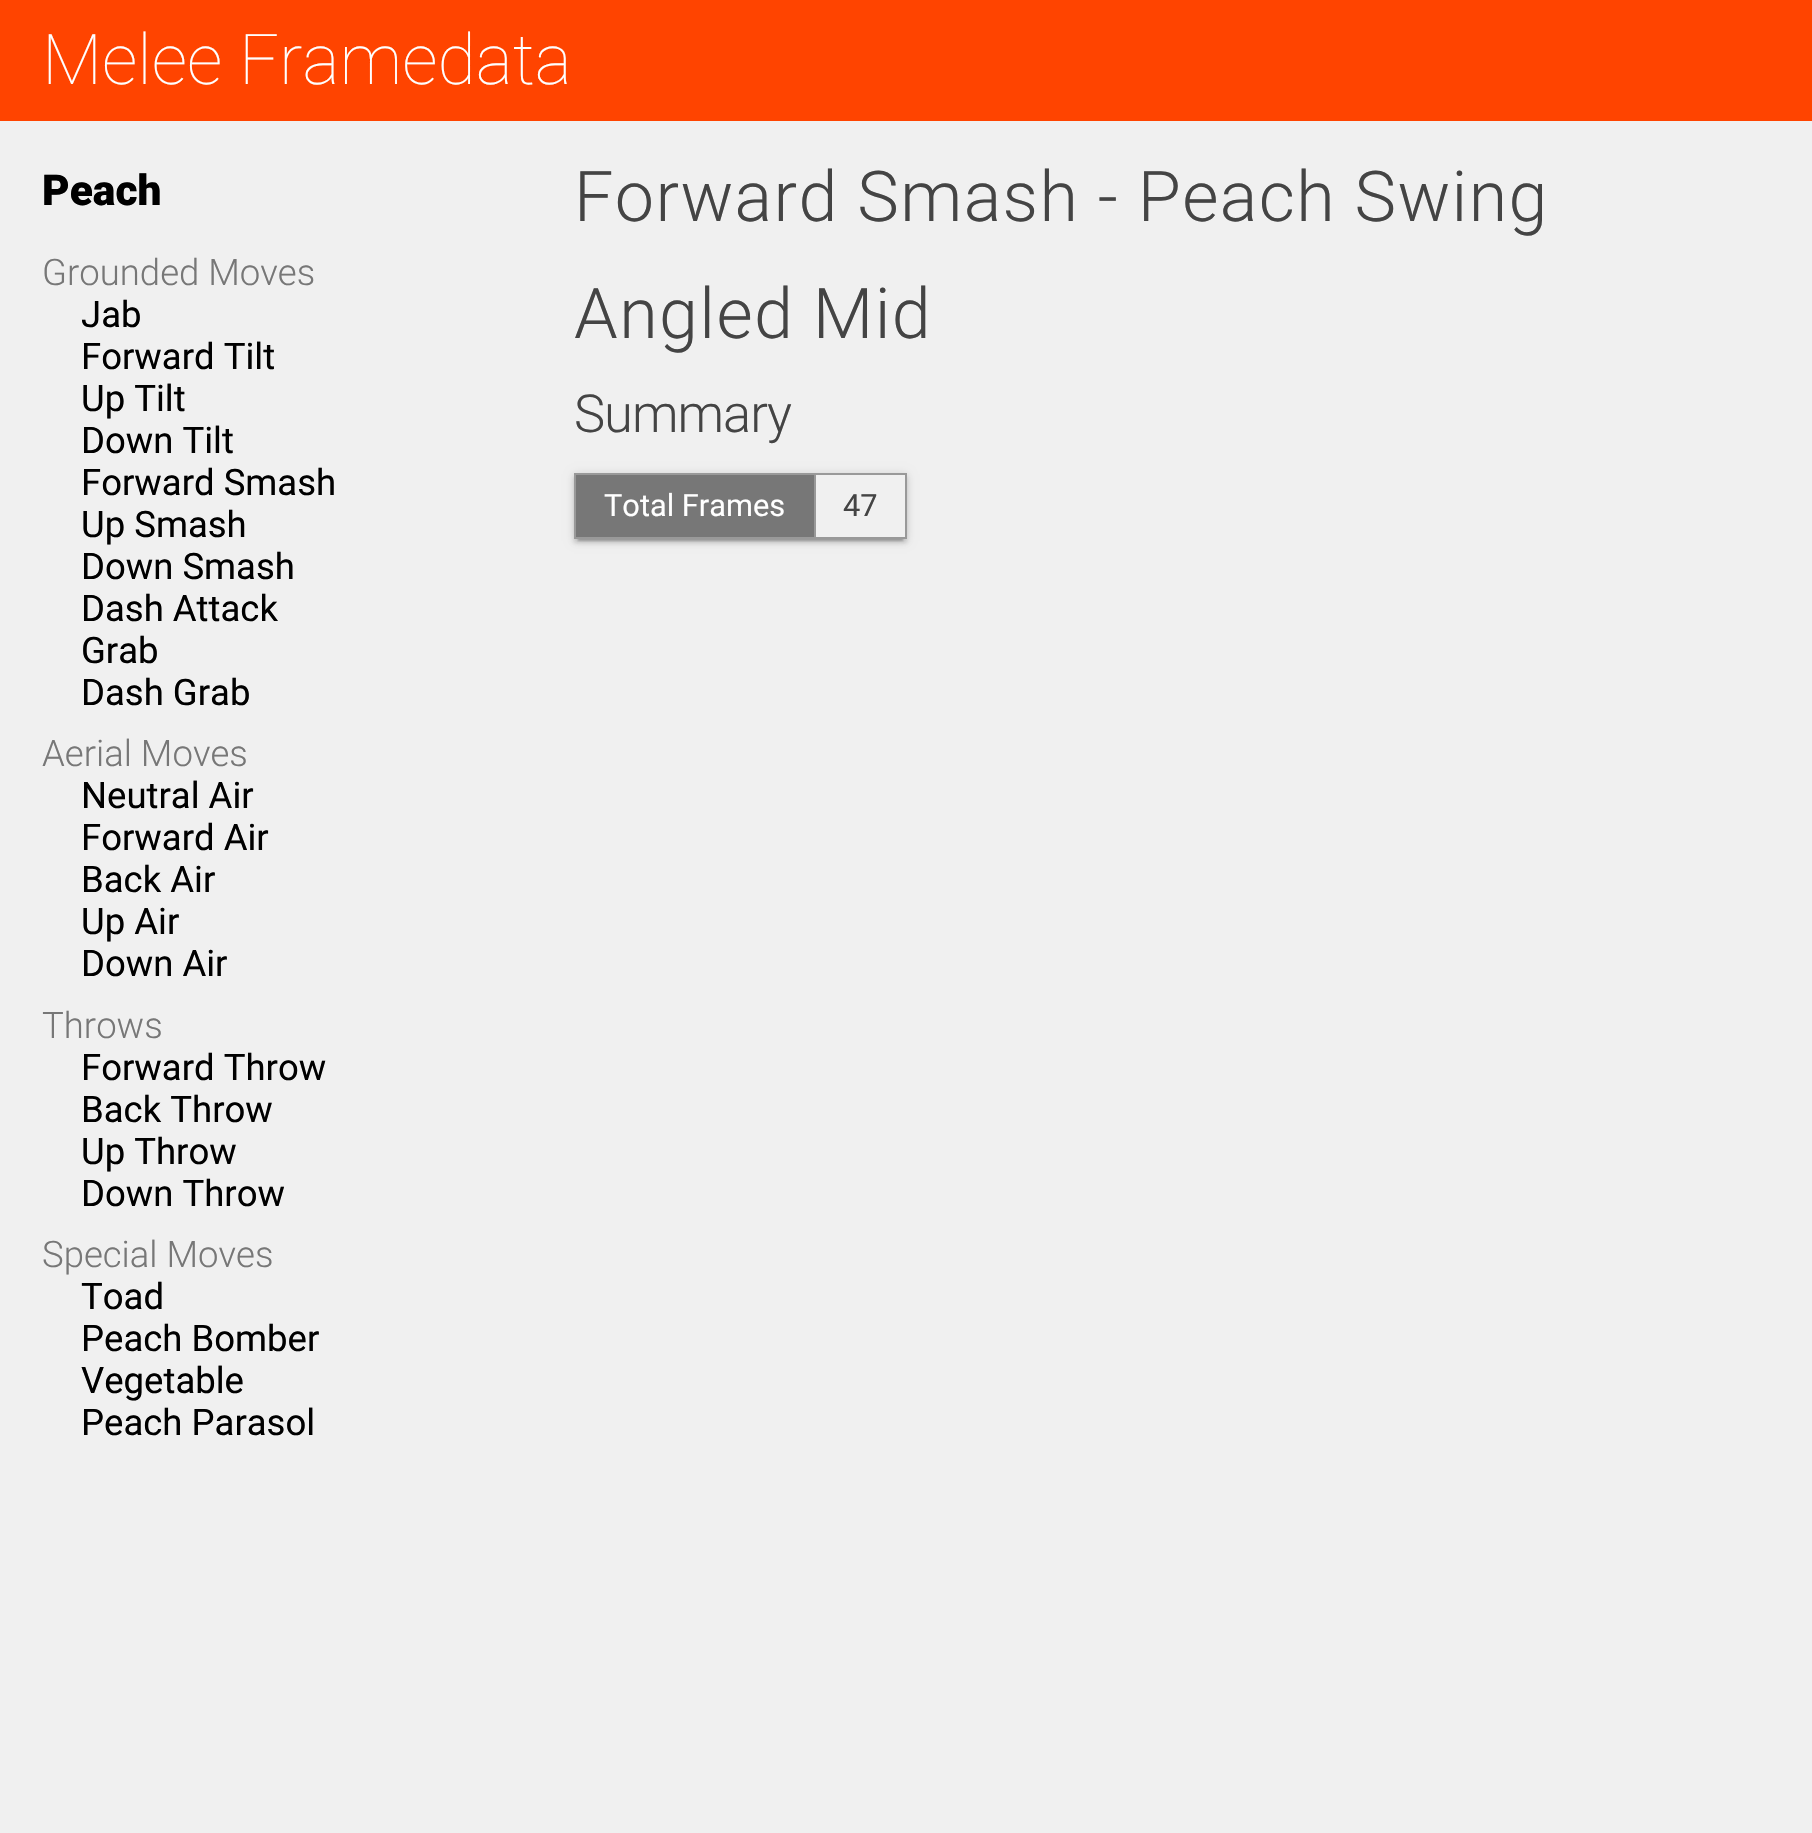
void draw(SkCanvas* canvas) {
	SkPaint fill;
	fill.setAntiAlias(true);
	auto makeFont = [&](const char* family, int weight, float size, bool italic = false) {
		SkFontStyle style(weight, SkFontStyle::kNormal_Width,
			italic ? SkFontStyle::kItalic_Slant : SkFontStyle::kUpright_Slant);
		SkFont result(fontMgr->matchFamilyStyle(family, style), size);
		result.setSubpixel(true);
		return result;
	};
	auto text = [&](const char* s, float x, float y, const SkFont& font) {
		canvas->drawString(s, x, y, font, fill);
	};
	auto spacedText = [&](const char* s, float x, float y, const SkFont& font, const SkPaint& ink, float letter, float word) {
		std::vector<SkGlyphID> glyphs(font.countText(s, strlen(s), SkTextEncoding::kUTF8));
		std::vector<float> xs(glyphs.size());
		font.textToGlyphs(s, strlen(s), SkTextEncoding::kUTF8, glyphs);
		font.getXPos(glyphs, xs, x);
		float extra = 0;
		for (size_t i = 0; i < glyphs.size(); i++) {
			xs[i] += extra;
			extra += letter + word * (glyphs[i] == font.unicharToGlyph(' '));
		}
		canvas->drawTextBlob(SkTextBlob::MakeFromPosHGlyphs(glyphs, xs, y, font), 0, 0, ink);
	};
	auto box = [&](float l, float t, float r, float b) {
		canvas->drawRect(SkRect::MakeLTRB(l, t, r, b), fill);
	};
	canvas->clear(0xFFF0F0F0);
	fill.setColor(0xFFFF4400);
	box(0, 0, 1812, 121);
	canvas->save();
	canvas->clipRect(SkRect::MakeLTRB(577, 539, 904, 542));
	fill.setColor(0x33000000);
	fill.setMaskFilter(SkMaskFilter::MakeBlur(kNormal_SkBlurStyle, 1));
	canvas->drawRect(SkRect::MakeLTRB(578, 481, 903, 541), fill);
	fill.setMaskFilter(nullptr);
	canvas->restore();
	canvas->save();
	canvas->clipPath(SkPathBuilder(SkPathFillType::kEvenOdd).moveTo(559, 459).lineTo(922, 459).lineTo(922, 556).lineTo(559, 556).close().moveTo(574, 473).lineTo(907, 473).lineTo(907, 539).lineTo(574, 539).close().detach(), true);
	fill.setColor(0x1F000000);
	fill.setMaskFilter(SkMaskFilter::MakeBlur(kNormal_SkBlurStyle, 4.5f));
	canvas->drawRect(SkRect::MakeLTRB(574, 474, 907, 541), fill);
	fill.setMaskFilter(nullptr);
	canvas->restore();
	canvas->save();
	canvas->clipPath(SkPathBuilder(SkPathFillType::kEvenOdd).moveTo(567, 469).lineTo(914, 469).lineTo(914, 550).lineTo(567, 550).close().moveTo(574, 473).lineTo(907, 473).lineTo(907, 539).lineTo(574, 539).close().detach(), true);
	fill.setColor(0x24000000);
	fill.setMaskFilter(SkMaskFilter::MakeBlur(kNormal_SkBlurStyle, 2));
	canvas->drawRect(SkRect::MakeLTRB(574, 476, 907, 543), fill);
	fill.setMaskFilter(nullptr);
	canvas->restore();
	fill.setColor(0xFF777777);
	box(576, 475, 814, 537);
	fill.setColor(0xFF999999);
	box(814, 473, 907, 475);
	box(905, 473, 907, 539);
	box(814, 537, 907, 539);
	box(814, 473, 816, 539);
	box(574, 473, 816, 475);
	box(574, 537, 816, 539);
	box(574, 473, 576, 539);
	auto font1 = makeFont("Roboto", 100, 70);
	fill.setColor(0xFFFFFFFF);
	text("Melee Framedata", 42, 84, font1);
	auto font2 = makeFont("Roboto", 900, 42.5f);
	fill.setColor(0xFF000000);
	text("Peach", 42, 205, font2);
	auto font3 = makeFont("Roboto", 300, 36.5f);
	fill.setColor(0xFF777777);
	text("Grounded Moves", 42, 285, font3);
	auto font4 = makeFont("Roboto", 400, 36.5f);
	fill.setColor(0xFF000000);
	text("Jab", 81, 327, font4);
	text("Forward Tilt", 81, 369, font4);
	text("Up Tilt", 81, 411, font4);
	text("Down Tilt", 81, 453, font4);
	text("Forward Smash", 81, 495, font4);
	text("Up Smash", 81, 537, font4);
	text("Down Smash", 81, 579, font4);
	text("Dash Attack", 81, 621, font4);
	text("Grab", 81, 663, font4);
	text("Dash Grab", 81, 705, font4);
	fill.setColor(0xFF777777);
	text("Aerial Moves", 42, 766, font3);
	fill.setColor(0xFF000000);
	text("Neutral Air", 81, 808, font4);
	text("Forward Air", 81, 850, font4);
	text("Back Air", 81, 892, font4);
	text("Up Air", 81, 934, font4);
	text("Down Air", 81, 976, font4);
	fill.setColor(0xFF777777);
	text("Throws", 42, 1038, font3);
	fill.setColor(0xFF000000);
	text("Forward Throw", 81, 1080, font4);
	text("Back Throw", 81, 1122, font4);
	text("Up Throw", 81, 1164, font4);
	text("Down Throw", 81, 1206, font4);
	fill.setColor(0xFF777777);
	text("Special Moves", 42, 1267, font3);
	fill.setColor(0xFF000000);
	text("Toad", 81, 1309, font4);
	text("Peach Bomber", 81, 1351, font4);
	text("Vegetable", 81, 1393, font4);
	text("Peach Parasol", 81, 1435, font4);
	auto font5 = makeFont("Roboto", 300, 70);
	fill.setColor(0xFF444444);
	spacedText("Forward Smash - Peach Swing", 574, 221, font5, fill, 1.4f, 0);
	spacedText("Angled Mid", 574, 338, font5, fill, 1.4f, 0);
	auto font6 = makeFont("Roboto", 300, 52.5f);
	spacedText("Summary", 574, 432, font6, fill, -1, 0);
	auto font7 = makeFont("Roboto", 400, 30.75f);
	fill.setColor(0xFFFFFFFF);
	text("Total Frames", 604, 516, font7);
	fill.setColor(0xFF444444);
	text("47", 843, 516, font7);
}
